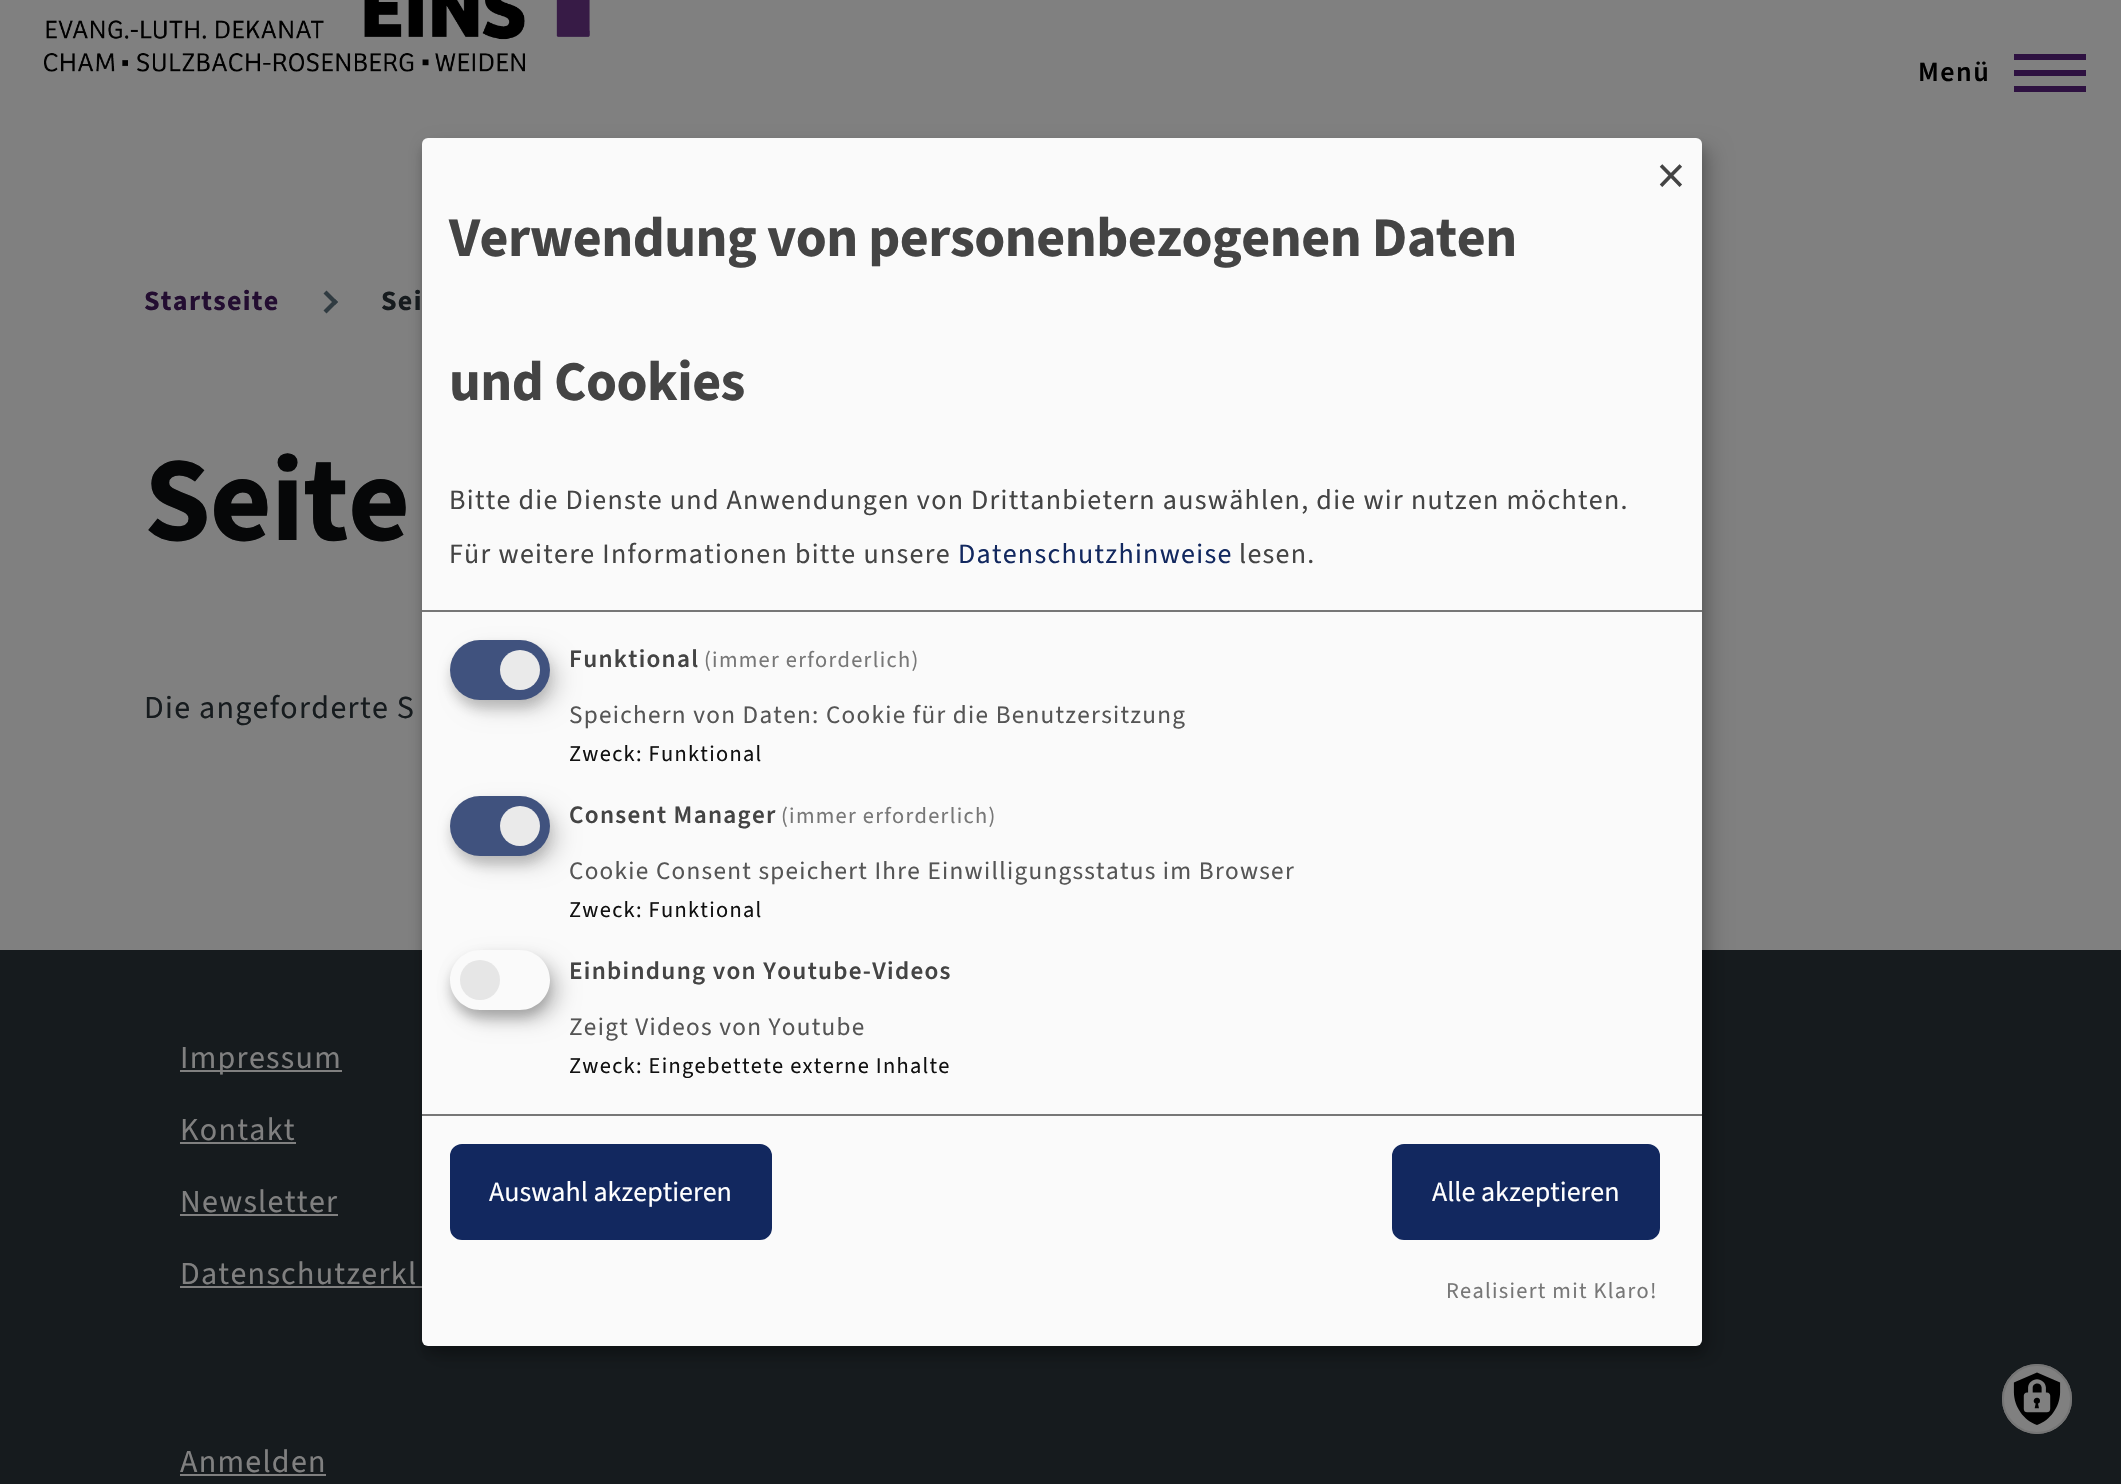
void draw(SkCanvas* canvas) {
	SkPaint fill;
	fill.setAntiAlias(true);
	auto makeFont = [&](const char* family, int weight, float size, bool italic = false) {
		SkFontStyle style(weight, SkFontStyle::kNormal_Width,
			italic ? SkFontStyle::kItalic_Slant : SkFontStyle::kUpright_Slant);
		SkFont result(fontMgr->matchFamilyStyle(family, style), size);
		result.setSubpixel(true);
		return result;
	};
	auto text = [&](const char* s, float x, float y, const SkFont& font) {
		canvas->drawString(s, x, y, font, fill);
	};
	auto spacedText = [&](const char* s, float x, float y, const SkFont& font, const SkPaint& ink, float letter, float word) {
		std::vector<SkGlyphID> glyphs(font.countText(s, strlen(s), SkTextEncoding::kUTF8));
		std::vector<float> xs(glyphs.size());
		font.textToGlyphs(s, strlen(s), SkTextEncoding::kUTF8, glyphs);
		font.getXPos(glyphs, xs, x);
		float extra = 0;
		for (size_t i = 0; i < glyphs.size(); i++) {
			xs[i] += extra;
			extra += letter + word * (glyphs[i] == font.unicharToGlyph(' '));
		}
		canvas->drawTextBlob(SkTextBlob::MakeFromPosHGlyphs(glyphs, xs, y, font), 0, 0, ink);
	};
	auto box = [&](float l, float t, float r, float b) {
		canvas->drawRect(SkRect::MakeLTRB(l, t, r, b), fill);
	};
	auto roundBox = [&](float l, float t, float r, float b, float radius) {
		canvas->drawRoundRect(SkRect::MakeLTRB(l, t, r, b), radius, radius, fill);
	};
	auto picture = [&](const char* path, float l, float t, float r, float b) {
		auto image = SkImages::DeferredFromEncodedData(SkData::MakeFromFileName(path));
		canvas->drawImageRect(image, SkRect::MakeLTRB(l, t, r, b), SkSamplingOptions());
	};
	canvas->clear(0xFF808080);
	picture("image0.png", 44, 0, 590, 72);
	fill.setColor(0xFF2E1141);
	box(2014, 70, 2086, 76);
	box(2014, 54, 2086, 60);
	box(2014, 86, 2086, 92);
	fill.setColor(0xFF303B41);
	canvas->drawPath(SkPathBuilder().moveTo(326.5f, 290.5f).lineTo(338, 302).lineTo(335, 305).lineTo(323.5f, 293.5f).close().detach(), fill);
	canvas->drawPath(SkPathBuilder().moveTo(335, 299).lineTo(338, 302).lineTo(326.5f, 313.5f).lineTo(323.5f, 310.5f).close().detach(), fill);
	fill.setColor(0xFF161B1E);
	box(0, 950, 2121, 1484);
	fill.setColor(0xFF808080);
	box(180, 1070, 342, 1072);
	box(180, 1142, 296, 1144);
	box(180, 1214, 338, 1216);
	box(180, 1286, 422, 1288);
	box(180, 1474, 326, 1476);
	fill.setColor(0x30000000);
	fill.setMaskFilter(SkMaskFilter::MakeBlur(kNormal_SkBlurStyle, 10));
	canvas->drawRoundRect(SkRect::MakeLTRB(432, 148, 1712, 1356), 6, 6, fill);
	fill.setMaskFilter(nullptr);
	fill.setColor(0x33000000);
	fill.setMaskFilter(SkMaskFilter::MakeBlur(kNormal_SkBlurStyle, 6));
	canvas->drawRoundRect(SkRect::MakeLTRB(422, 146, 1702, 1354), 6, 6, fill);
	fill.setMaskFilter(nullptr);
	fill.setColor(0xFFFAFAFA);
	roundBox(422, 138, 1702, 1346, 6);
	fill.setColor(0xFF777777);
	box(422, 610, 1702, 612);
	fill.setColor(0x26000000);
	fill.setMaskFilter(SkMaskFilter::MakeBlur(kNormal_SkBlurStyle, 10));
	canvas->drawRoundRect(SkRect::MakeLTRB(460, 650, 560, 710), 30, 30, fill);
	fill.setMaskFilter(nullptr);
	fill.setColor(0x33323232);
	fill.setMaskFilter(SkMaskFilter::MakeBlur(kNormal_SkBlurStyle, 6));
	canvas->drawRoundRect(SkRect::MakeLTRB(450, 648, 550, 708), 30, 30, fill);
	fill.setMaskFilter(nullptr);
	fill.setColor(0xFF40527E);
	roundBox(450, 640, 550, 700, 30);
	fill.setColor(0xFFEAEAEA);
	canvas->drawCircle(520, 670, 20, fill);
	fill.setColor(0x26000000);
	fill.setMaskFilter(SkMaskFilter::MakeBlur(kNormal_SkBlurStyle, 10));
	canvas->drawRoundRect(SkRect::MakeLTRB(460, 806, 560, 866), 30, 30, fill);
	fill.setMaskFilter(nullptr);
	fill.setColor(0x33323232);
	fill.setMaskFilter(SkMaskFilter::MakeBlur(kNormal_SkBlurStyle, 6));
	canvas->drawRoundRect(SkRect::MakeLTRB(450, 804, 550, 864), 30, 30, fill);
	fill.setMaskFilter(nullptr);
	fill.setColor(0xFF40527E);
	roundBox(450, 796, 550, 856, 30);
	fill.setColor(0xFFEAEAEA);
	canvas->drawCircle(520, 826, 20, fill);
	canvas->save();
	canvas->clipPath(SkPathBuilder(SkPathFillType::kEvenOdd).moveTo(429, 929).lineTo(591, 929).lineTo(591, 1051).lineTo(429, 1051).close().moveTo(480, 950).lineTo(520, 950).cubicTo(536.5f, 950, 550, 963.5f, 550, 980).cubicTo(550, 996.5f, 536.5f, 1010, 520, 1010).lineTo(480, 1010).cubicTo(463.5f, 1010, 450, 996.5f, 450, 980).cubicTo(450, 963.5f, 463.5f, 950, 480, 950).close().detach(), true);
	fill.setColor(0x30000000);
	fill.setMaskFilter(SkMaskFilter::MakeBlur(kNormal_SkBlurStyle, 10));
	canvas->drawRoundRect(SkRect::MakeLTRB(460, 960, 560, 1020), 30, 30, fill);
	fill.setMaskFilter(nullptr);
	canvas->restore();
	canvas->save();
	canvas->clipPath(SkPathBuilder(SkPathFillType::kEvenOdd).moveTo(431, 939).lineTo(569, 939).lineTo(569, 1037).lineTo(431, 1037).close().moveTo(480, 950).lineTo(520, 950).cubicTo(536.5f, 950, 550, 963.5f, 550, 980).cubicTo(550, 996.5f, 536.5f, 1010, 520, 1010).lineTo(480, 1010).cubicTo(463.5f, 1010, 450, 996.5f, 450, 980).cubicTo(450, 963.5f, 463.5f, 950, 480, 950).close().detach(), true);
	fill.setColor(0x33000000);
	fill.setMaskFilter(SkMaskFilter::MakeBlur(kNormal_SkBlurStyle, 6));
	canvas->drawRoundRect(SkRect::MakeLTRB(450, 958, 550, 1018), 30, 30, fill);
	fill.setMaskFilter(nullptr);
	canvas->restore();
	fill.setColor(0xFFE6E6E6);
	canvas->drawCircle(480, 980, 20, fill);
	fill.setColor(0xFF777777);
	box(422, 1114, 1702, 1116);
	fill.setColor(0xFF12285F);
	canvas->drawRoundRect(SkRect::MakeLTRB(453, 1147, 769, 1237), 9, 9, fill);
	fill.setStyle(SkPaint::kStroke_Style);
	fill.setStrokeWidth(6);
	canvas->drawRoundRect(SkRect::MakeLTRB(453, 1147, 769, 1237), 9, 9, fill);
	fill.setStyle(SkPaint::kFill_Style);
	canvas->drawRoundRect(SkRect::MakeLTRB(1395, 1147, 1657, 1237), 9, 9, fill);
	fill.setStyle(SkPaint::kStroke_Style);
	canvas->drawRoundRect(SkRect::MakeLTRB(1395, 1147, 1657, 1237), 9, 9, fill);
	fill.setStyle(SkPaint::kFill_Style);
	fill.setColor(0xFF808080);
	canvas->drawCircle(2037, 1399, 35, fill);
	picture("image1.png", 2013, 1372, 2061, 1425);
	fill.setStyle(SkPaint::kStroke_Style);
	fill.setStrokeWidth(2);
	fill.setColor(0xFF757575);
	canvas->drawCircle(2037, 1399, 34, fill);
	auto font1 = makeFont("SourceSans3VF", 600, 28);
	fill.setStyle(SkPaint::kFill_Style);
	fill.setColor(0xFF000000);
	spacedText("Menü", 1918, 81, font1, fill, 1.5f, 0);
	auto font2 = makeFont("SourceSans3VF", 700, 28);
	fill.setColor(0xFF230D31);
	spacedText("Startseite", 144, 310, font2, fill, 1.28f, 0);
	fill.setColor(0xFF161B1E);
	spacedText("Sei", 381, 310, font2, fill, 1.28f, 0);
	auto font3 = makeFont("SourceSans3VF", 700, 120);
	fill.setColor(0xFF060708);
	spacedText("Seite", 144, 540, font3, fill, -1, 0);
	auto font4 = makeFont("SourceSans3VF", 400, 32);
	fill.setColor(0xFF161B1E);
	spacedText("Die angeforderte S", 144, 718, font4, fill, 1.28f, 0);
	fill.setColor(0xFF808080);
	spacedText("Impressum", 180, 1068, font4, fill, 1.28f, 0);
	spacedText("Kontakt", 180, 1140, font4, fill, 1.28f, 0);
	spacedText("Newsletter", 180, 1212, font4, fill, 1.28f, 0);
	spacedText("Datenschutzerkl", 180, 1284, font4, fill, 1.28f, 0);
	spacedText("Anmelden", 180, 1472, font4, fill, 1.28f, 0);
	auto font5 = makeFont("SourceSans3VF", 400, 56);
	fill.setColor(0xFF444444);
	text("×", 1657, 194, font5);
	auto font6 = makeFont("SourceSans3VF", 700, 56);
	spacedText("Verwendung von personenbezogenen Daten", 449, 256, font6, fill, -0.55f, 0);
	spacedText("und Cookies", 449, 400, font6, fill, -0.55f, 0);
	auto font7 = makeFont("SourceSans3VF", 400, 28);
	spacedText("Bitte die Dienste und Anwendungen von Drittanbietern auswählen, die wir nutzen möchten.", 449, 509, font7, fill, 1.28f, 0);
	spacedText("Für weitere Informationen bitte unsere", 449, 563, font7, fill, 1.28f, 0);
	fill.setColor(0xFF12285F);
	spacedText("Datenschutzhinweise", 958, 563, font7, fill, 1.28f, 0);
	fill.setColor(0xFF444444);
	spacedText("lesen.", 1239, 563, font7, fill, 1.28f, 0);
	auto font8 = makeFont("SourceSans3VF", 600, 25.2f);
	spacedText("Funktional", 569, 667, font8, fill, 1.28f, 0);
	auto font9 = makeFont("SourceSans3VF", 400, 22.4f);
	fill.setColor(0xFF777777);
	spacedText("(immer erforderlich)", 704, 667, font9, fill, 1.28f, 0);
	auto font10 = makeFont("SourceSans3VF", 400, 25.2f);
	fill.setColor(0xFF555555);
	spacedText("Speichern von Daten: Cookie für die Benutzersitzung", 569, 723, font10, fill, 1.28f, 0);
	fill.setColor(0xFF111111);
	spacedText("Zweck: Funktional", 569, 761, font9, fill, 1.28f, 0);
	fill.setColor(0xFF444444);
	spacedText("Consent Manager", 569, 823, font8, fill, 1.28f, 0);
	fill.setColor(0xFF777777);
	spacedText("(immer erforderlich)", 781, 823, font9, fill, 1.28f, 0);
	fill.setColor(0xFF555555);
	spacedText("Cookie Consent speichert Ihre Einwilligungsstatus im Browser", 569, 879, font10, fill, 1.28f, 0);
	fill.setColor(0xFF111111);
	spacedText("Zweck: Funktional", 569, 917, font9, fill, 1.28f, 0);
	fill.setColor(0xFF444444);
	spacedText("Einbindung von Youtube-Videos", 569, 979, font8, fill, 1.28f, 0);
	fill.setColor(0xFF555555);
	spacedText("Zeigt Videos von Youtube", 569, 1035, font10, fill, 1.28f, 0);
	fill.setColor(0xFF111111);
	spacedText("Zweck: Eingebettete externe Inhalte", 569, 1073, font9, fill, 1.28f, 0);
	fill.setColor(0xFFFFFFFF);
	text("Auswahl akzeptieren", 489, 1201, font7);
	text("Alle akzeptieren", 1432, 1201, font7);
	fill.setColor(0xFF777777);
	spacedText("Realisiert mit Klaro!", 1446, 1298, font9, fill, 1.28f, 0);
}
